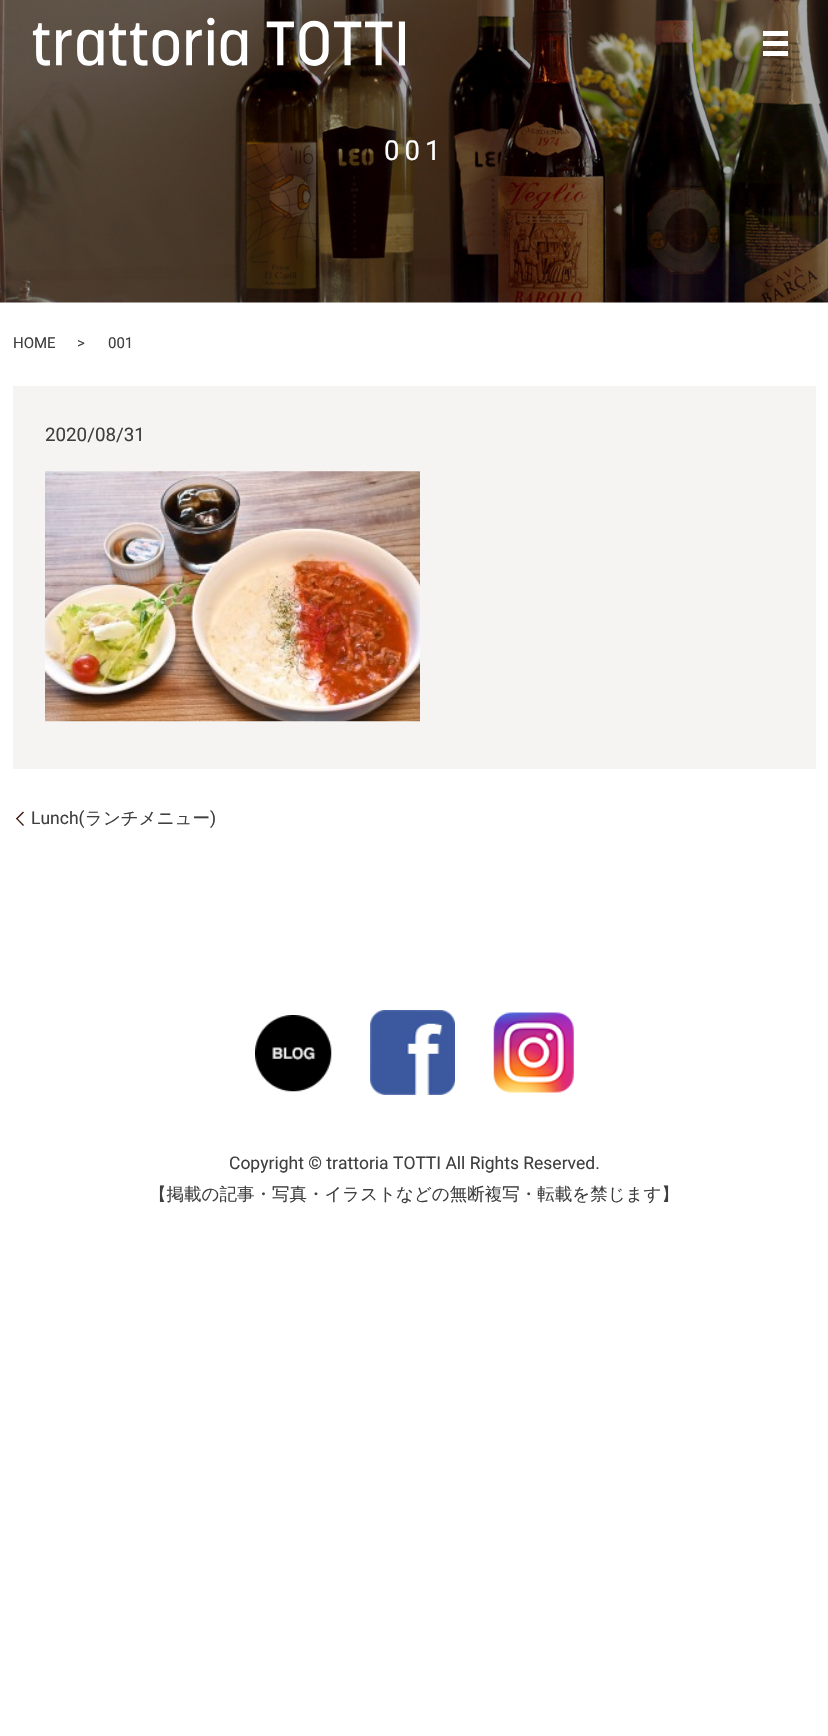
void draw(SkCanvas* canvas) {
	SkPaint fill;
	fill.setAntiAlias(true);
	auto makeFont = [&](const char* family, int weight, float size, bool italic = false) {
		SkFontStyle style(weight, SkFontStyle::kNormal_Width,
			italic ? SkFontStyle::kItalic_Slant : SkFontStyle::kUpright_Slant);
		SkFont result(fontMgr->matchFamilyStyle(family, style), size);
		result.setSubpixel(true);
		return result;
	};
	auto text = [&](const char* s, float x, float y, const SkFont& font) {
		canvas->drawString(s, x, y, font, fill);
	};
	auto spacedText = [&](const char* s, float x, float y, const SkFont& font, const SkPaint& ink, float letter, float word) {
		std::vector<SkGlyphID> glyphs(font.countText(s, strlen(s), SkTextEncoding::kUTF8));
		std::vector<float> xs(glyphs.size());
		font.textToGlyphs(s, strlen(s), SkTextEncoding::kUTF8, glyphs);
		font.getXPos(glyphs, xs, x);
		float extra = 0;
		for (size_t i = 0; i < glyphs.size(); i++) {
			xs[i] += extra;
			extra += letter + word * (glyphs[i] == font.unicharToGlyph(' '));
		}
		canvas->drawTextBlob(SkTextBlob::MakeFromPosHGlyphs(glyphs, xs, y, font), 0, 0, ink);
	};
	auto box = [&](float l, float t, float r, float b) {
		canvas->drawRect(SkRect::MakeLTRB(l, t, r, b), fill);
	};
	auto picture = [&](const char* path, float l, float t, float r, float b) {
		auto image = SkImages::DeferredFromEncodedData(SkData::MakeFromFileName(path));
		canvas->drawImageRect(image, SkRect::MakeLTRB(l, t, r, b), SkSamplingOptions());
	};
	canvas->clear(0xFFFFFFFF);
	picture("image1.png", 0, 0, 828, 303);
	picture("image0.png", 32, 17, 405, 66);
	fill.setColor(0xFFFFFFFF);
	box(763, 31, 788, 36);
	box(763, 41, 788, 46);
	box(763, 51, 788, 56);
	fill.setColor(0xFFF6F4F3);
	box(13, 386, 816, 769);
	picture("image2.png", 45, 471, 420, 722);
	fill.setColor(0xFF381608);
	canvas->drawPath(SkPathBuilder().moveTo(16, 818.5f).lineTo(23, 811.5f).lineTo(24, 812.5f).lineTo(17, 819.5f).close().detach(), fill);
	canvas->drawPath(SkPathBuilder().moveTo(23, 826).lineTo(16, 818.5f).lineTo(17, 818).lineTo(24, 825).close().detach(), fill);
	picture("image3.png", 255, 1015, 332, 1092);
	picture("image4.png", 370, 1010, 455, 1095);
	picture("image5.png", 493, 1012, 574, 1093);
	auto font1 = makeFont("Roboto", 400, 27.5f);
	fill.setColor(0xFFFFFFFF);
	spacedText("001", 384, 160, font1, fill, 5, 0);
	auto font2 = makeFont("Roboto", 400, 15);
	fill.setColor(0xFF3F3F3F);
	text("HOME", 13, 348, font2);
	text(">", 77, 348, font2);
	text("001", 108, 348, font2);
	auto font3 = makeFont("Roboto", 400, 18.75f);
	text("2020/08/31", 45, 441, font3);
	auto font4 = makeFont("Roboto", 400, 17.5f);
	text("Lunch(", 31, 824, font4);
	auto font5 = makeFont("WenQuanYi Zen Hei", 500, 17.5f);
	text("ランチメニュー", 85, 824, font5);
	text(")", 210, 824, font4);
	text("Copyright © trattoria TOTTI All Rights Reserved.", 229, 1169, font4);
	text("【掲載の記事・写真・イラストなどの無断複写・転載を禁じます】", 149, 1200, font5);
}
